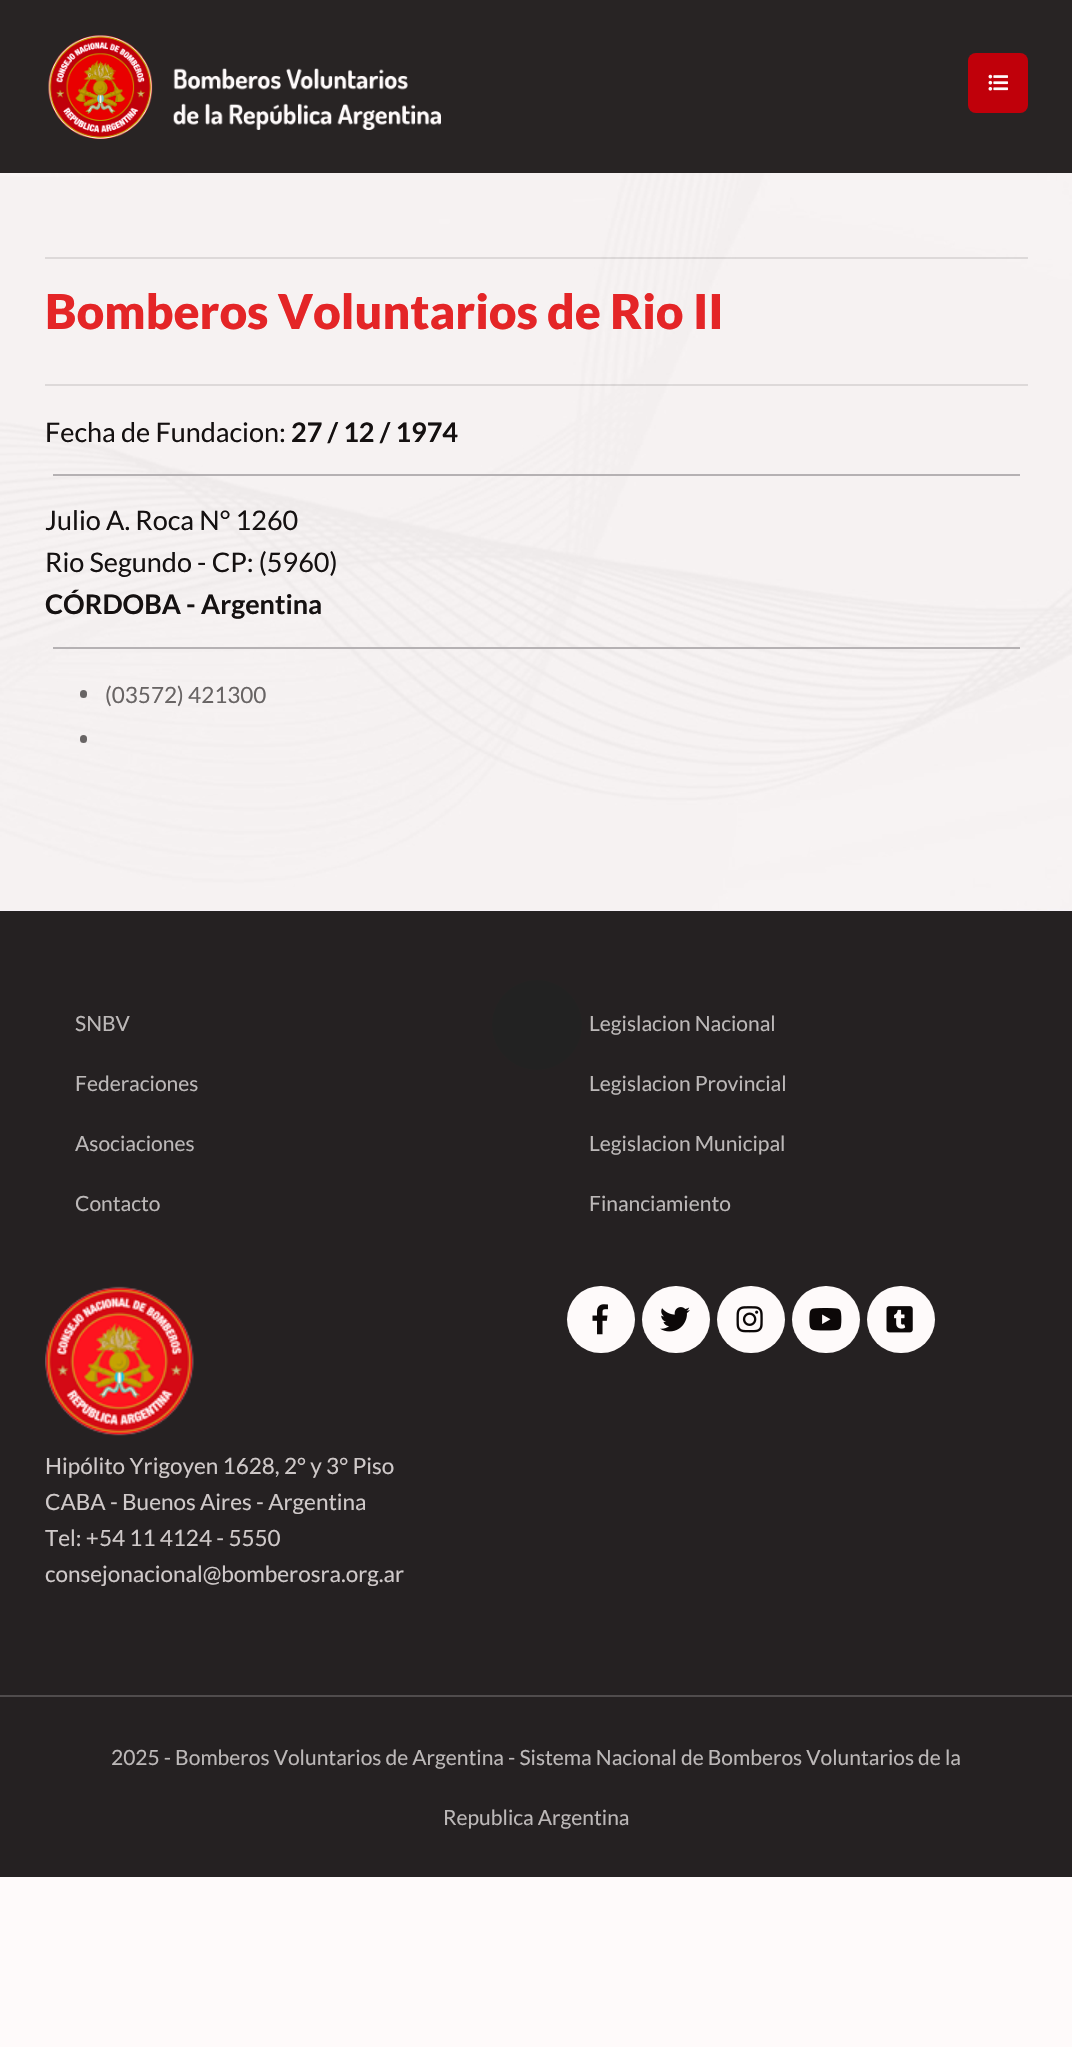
void draw(SkCanvas* canvas) {
	SkPaint fill;
	fill.setAntiAlias(true);
	auto makeFont = [&](const char* family, int weight, float size, bool italic = false) {
		SkFontStyle style(weight, SkFontStyle::kNormal_Width,
			italic ? SkFontStyle::kItalic_Slant : SkFontStyle::kUpright_Slant);
		SkFont result(fontMgr->matchFamilyStyle(family, style), size);
		result.setSubpixel(true);
		return result;
	};
	auto text = [&](const char* s, float x, float y, const SkFont& font) {
		canvas->drawString(s, x, y, font, fill);
	};
	auto box = [&](float l, float t, float r, float b) {
		canvas->drawRect(SkRect::MakeLTRB(l, t, r, b), fill);
	};
	auto roundBox = [&](float l, float t, float r, float b, float radius) {
		canvas->drawRoundRect(SkRect::MakeLTRB(l, t, r, b), radius, radius, fill);
	};
	auto picture = [&](const char* path, float l, float t, float r, float b) {
		auto image = SkImages::DeferredFromEncodedData(SkData::MakeFromFileName(path));
		canvas->drawImageRect(image, SkRect::MakeLTRB(l, t, r, b), SkSamplingOptions());
	};
	canvas->clear(0xFFFEFAFA);
	fill.setColor(0xFF282424);
	box(0, 0, 1072, 173);
	picture("image0.png", 48, 35, 441, 139);
	fill.setColor(0xFFC0000A);
	roundBox(968, 53, 1028, 113, 8);
	picture("image1.png", 988, 74, 1008, 91);
	fill.setColor(0xFFF6F1F7);
	box(0, 910, 1072, 911);
	picture("image2.png", 0, 173, 1072, 910);
	fill.setColor(0x1A040000);
	box(45, 257, 1028, 259);
	box(45, 384, 1028, 386);
	fill.setColor(0xFFB5B1B3);
	box(53, 474, 1020, 476);
	box(53, 647, 1020, 649);
	fill.setColor(0xFF686464);
	roundBox(80, 690, 87, 698, 3.5f);
	roundBox(80, 735, 87, 743, 3.5f);
	fill.setColor(0xFF252122);
	box(0, 911, 1072, 1695);
	fill.setColor(0xFFFEFAFA);
	roundBox(567, 1286, 635, 1353, 33.5f);
	picture("image3.png", 592, 1304, 608, 1335);
	roundBox(642, 1286, 710, 1353, 33.5f);
	picture("image4.png", 660, 1307, 690, 1332);
	roundBox(717, 1286, 785, 1353, 33.5f);
	picture("image5.png", 736, 1306, 763, 1333);
	roundBox(792, 1286, 860, 1353, 33.5f);
	picture("image6.png", 809, 1308, 842, 1331);
	roundBox(867, 1286, 935, 1353, 33.5f);
	picture("image7.png", 886, 1306, 913, 1333);
	picture("image8.png", 45, 1286, 194, 1436);
	fill.setColor(0xFF252122);
	box(0, 1697, 1072, 1877);
	fill.setColor(0xFF504C4D);
	box(0, 1695, 1072, 1697);
	fill.setColor(0xFF222222);
	canvas->drawCircle(537, 1025, 45, fill);
	auto font1 = makeFont("Lato", 900, 48);
	fill.setColor(0xFFE42527);
	text("Bomberos Voluntarios de Rio II", 45, 329, font1);
	auto font2 = makeFont("Lato", 400, 27);
	fill.setColor(0xFF151111);
	text("Fecha de Fundacion:", 45, 442, font2);
	auto font3 = makeFont("Lato", 700, 27);
	text("27 / 12 / 1974", 291, 442, font3);
	text("Julio A. Roca N° 1260", 45, 530, font2);
	text("Rio Segundo - CP: (5960)", 45, 572, font2);
	text("CÓRDOBA - Argentina", 45, 614, font3);
	auto font4 = makeFont("Lato", 400, 22.5f);
	fill.setColor(0xFF686464);
	text("(03572) 421300", 105, 703, font4);
	auto font5 = makeFont("Lato", 400, 21);
	fill.setColor(0xFFBCB8B8);
	text("SNBV", 75, 1031, font5);
	text("Federaciones", 75, 1091, font5);
	text("Asociaciones", 75, 1151, font5);
	text("Contacto", 75, 1211, font5);
	text("Legislacion Nacional", 589, 1031, font5);
	text("Legislacion Provincial", 589, 1091, font5);
	text("Legislacion Municipal", 589, 1151, font5);
	text("Financiamiento", 589, 1211, font5);
	fill.setColor(0xFFCFC9C9);
	text("Hipólito Yrigoyen 1628, 2° y 3° Piso", 45, 1474, font4);
	text("CABA - Buenos Aires - Argentina", 45, 1510, font4);
	text("Tel: +54 11 4124 - 5550", 45, 1546, font4);
	text("consejonacional@bomberosra.org.ar", 45, 1582, font4);
	fill.setColor(0xFFBCB8B8);
	text("2025 - Bomberos Voluntarios de Argentina - Sistema Nacional de Bomberos Voluntarios de la", 111, 1765, font5);
	text("Republica Argentina", 443, 1825, font5);
}
